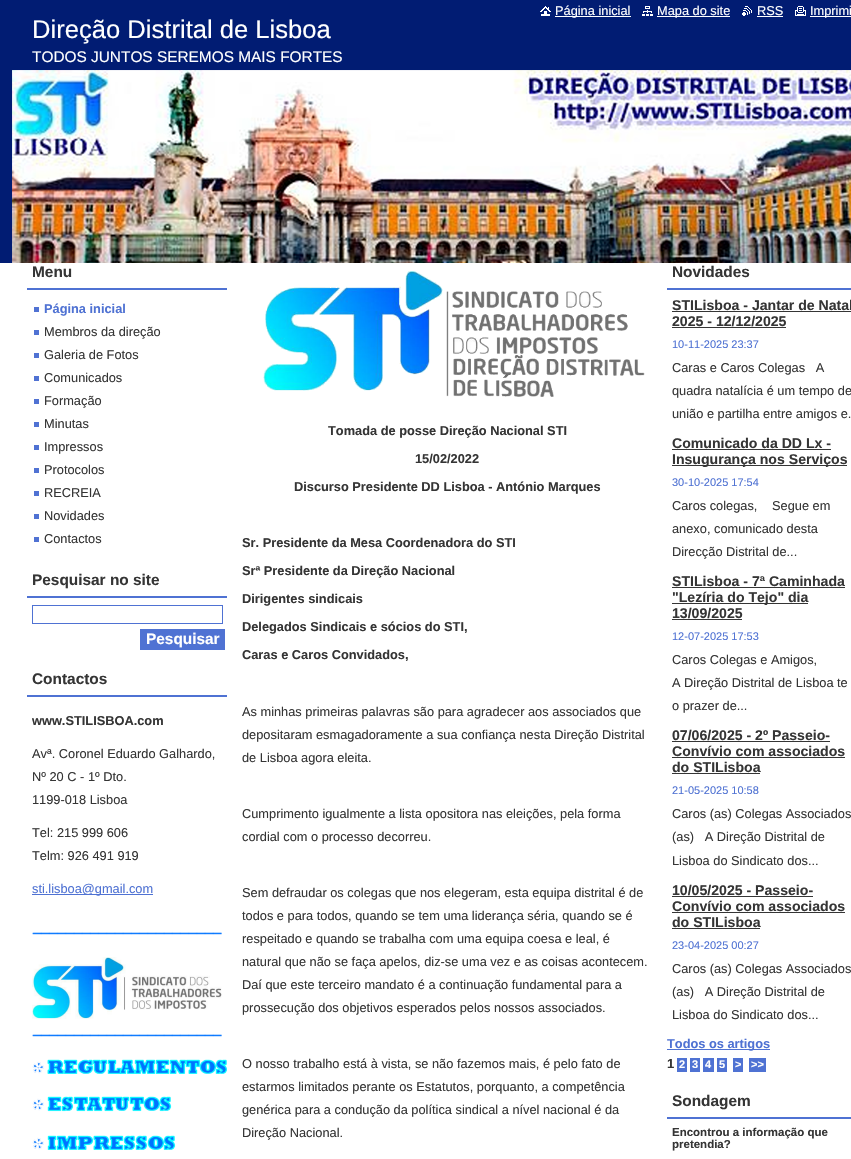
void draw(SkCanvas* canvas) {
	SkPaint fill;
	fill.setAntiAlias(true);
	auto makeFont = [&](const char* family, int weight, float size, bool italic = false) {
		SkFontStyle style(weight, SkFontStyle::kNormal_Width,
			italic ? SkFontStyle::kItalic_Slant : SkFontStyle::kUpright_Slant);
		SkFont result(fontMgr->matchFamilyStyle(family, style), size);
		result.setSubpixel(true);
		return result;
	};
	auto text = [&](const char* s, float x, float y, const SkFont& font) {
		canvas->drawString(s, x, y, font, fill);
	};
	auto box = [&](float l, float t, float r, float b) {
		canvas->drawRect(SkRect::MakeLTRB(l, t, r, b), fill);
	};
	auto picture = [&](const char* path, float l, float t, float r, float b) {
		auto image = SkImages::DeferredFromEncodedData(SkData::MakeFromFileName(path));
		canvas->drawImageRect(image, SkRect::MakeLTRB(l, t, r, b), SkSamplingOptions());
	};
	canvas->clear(0xFFFFFFFF);
	fill.setColor(0xFF011C73);
	box(0, 0, 851, 263);
	picture("image0.png", 540, 6, 551, 16);
	fill.setColor(0xFFFFFFFF);
	box(555, 16, 631, 17);
	picture("image1.png", 642, 6, 653, 16);
	box(657, 16, 730, 17);
	picture("image2.png", 742, 6, 752, 16);
	box(757, 16, 783, 17);
	picture("image3.png", 795, 6, 806, 16);
	box(810, 16, 851, 17);
	picture("image4.png", 12, 70, 851, 263);
	fill.setColor(0xFF4F72D3);
	box(27, 288, 227, 290);
	fill.setColor(0xFF5072D3);
	box(34, 307, 39, 312);
	box(34, 330, 39, 335);
	box(34, 353, 39, 358);
	box(34, 376, 39, 381);
	box(34, 399, 39, 404);
	box(34, 422, 39, 427);
	box(34, 445, 39, 450);
	box(34, 468, 39, 473);
	box(34, 491, 39, 496);
	box(34, 514, 39, 519);
	box(34, 537, 39, 542);
	fill.setColor(0xFF4F72D3);
	box(27, 596, 227, 598);
	fill.setStyle(SkPaint::kStroke_Style);
	fill.setStrokeWidth(1);
	canvas->drawRect(SkRect::MakeLTRB(32.5f, 605.5f, 222.5f, 623.5f), fill);
	fill.setStyle(SkPaint::kFill_Style);
	box(140, 629, 225, 650);
	box(27, 695, 227, 697);
	box(32, 894, 153, 895);
	picture("image5.png", 32, 932, 222, 935);
	picture("image6.png", 32, 957, 222, 1019);
	picture("image5.png", 32, 1034, 222, 1037);
	picture("image7.png", 32, 1059, 227, 1074);
	picture("image8.png", 32, 1096, 172, 1112);
	picture("image9.png", 32, 1135, 176, 1150);
	picture("image10.png", 263, 271, 645, 397);
	box(667, 288, 851, 290);
	fill.setColor(0xFF353535);
	box(672, 311, 851, 312);
	box(672, 327, 786, 328);
	box(672, 449, 831, 450);
	box(672, 465, 847, 466);
	box(672, 587, 845, 588);
	box(672, 603, 808, 604);
	box(672, 619, 742, 620);
	box(672, 741, 830, 742);
	box(672, 757, 845, 758);
	box(672, 773, 760, 774);
	box(672, 896, 813, 897);
	box(672, 912, 845, 913);
	box(672, 928, 760, 929);
	fill.setColor(0xFF4F72D3);
	box(667, 1049, 770, 1050);
	box(677, 1058, 687, 1072);
	box(690, 1058, 700, 1072);
	box(703, 1058, 714, 1072);
	box(717, 1058, 727, 1072);
	box(733, 1058, 743, 1072);
	box(749, 1058, 766, 1072);
	box(667, 1117, 851, 1119);
	auto font1 = makeFont("Liberation Sans", 400, 12.8f);
	fill.setColor(0xFFFFFFFF);
	text("Página inicial", 555, 15, font1);
	text("Mapa do site", 657, 15, font1);
	text("RSS", 757, 15, font1);
	text("Imprimi", 810, 15, font1);
	auto font2 = makeFont("Liberation Sans", 400, 25.6f);
	text("Direção Distrital de Lisboa", 32, 38, font2);
	auto font3 = makeFont("Liberation Sans", 400, 15.4f);
	text("TODOS JUNTOS SEREMOS MAIS FORTES", 32, 62, font3);
	auto font4 = makeFont("Liberation Sans", 700, 15.4f);
	fill.setColor(0xFF353535);
	text("Menu", 32, 277, font4);
	auto font5 = makeFont("Liberation Sans", 700, 12.8f);
	fill.setColor(0xFF4F72D3);
	text("Página inicial", 44, 313, font5);
	fill.setColor(0xFF353535);
	text("Membros da direção", 44, 336, font1);
	text("Galeria de Fotos", 44, 359, font1);
	text("Comunicados", 44, 382, font1);
	text("Formação", 44, 405, font1);
	text("Minutas", 44, 428, font1);
	text("Impressos", 44, 451, font1);
	text("Protocolos", 44, 474, font1);
	text("RECREIA", 44, 497, font1);
	text("Novidades", 44, 520, font1);
	text("Contactos", 44, 543, font1);
	text("Pesquisar no site", 32, 585, font4);
	fill.setColor(0xFFFFFFFF);
	text("Pesquisar", 146, 644, font4);
	fill.setColor(0xFF353535);
	text("Contactos", 32, 684, font4);
	text("www.STILISBOA.com", 32, 725, font5);
	text("Avª. Coronel Eduardo Galhardo,", 32, 758, font1);
	text("Nº 20 C - 1º Dto.", 32, 781, font1);
	text("1199-018 Lisboa", 32, 804, font1);
	text("Tel: 215 999 606", 32, 837, font1);
	text("Telm: 926 491 919", 32, 860, font1);
	fill.setColor(0xFF4F72D3);
	text("sti.lisboa@gmail.com", 32, 893, font1);
	fill.setColor(0xFF353535);
	text("Tomada de posse Direção Nacional STI", 328, 435, font5);
	text("15/02/2022", 415, 463, font5);
	text("Discurso Presidente DD Lisboa - António Marques", 294, 491, font5);
	text("Sr. Presidente da Mesa Coordenadora do STI", 242, 547, font5);
	text("Srª Presidente da Direção Nacional", 242, 575, font5);
	text("Dirigentes sindicais", 242, 603, font5);
	text("Delegados Sindicais e sócios do STI,", 242, 631, font5);
	text("Caras e Caros Convidados,", 242, 659, font5);
	text("As minhas primeiras palavras são para agradecer aos associados que", 242, 716, font1);
	text("depositaram esmagadoramente a sua confiança nesta Direção Distrital", 242, 739, font1);
	text("de Lisboa agora eleita.", 242, 762, font1);
	text("Cumprimento igualmente a lista opositora nas eleições, pela forma", 242, 818, font1);
	text("cordial com o processo decorreu.", 242, 841, font1);
	text("Sem defraudar os colegas que nos elegeram, esta equipa distrital é de", 242, 897, font1);
	text("todos e para todos, quando se tem uma liderança séria, quando se é", 242, 920, font1);
	text("respeitado e quando se trabalha com uma equipa coesa e leal, é", 242, 943, font1);
	text("natural que não se faça apelos, diz-se uma vez e as coisas acontecem.", 242, 966, font1);
	text("Daí que este terceiro mandato é a continuação fundamental para a", 242, 989, font1);
	text("prossecução dos objetivos esperados pelos nossos associados.", 242, 1012, font1);
	text("O nosso trabalho está à vista, se não fazemos mais, é pelo fato de", 242, 1068, font1);
	text("estarmos limitados perante os Estatutos, porquanto, a competência", 242, 1091, font1);
	text("genérica para a condução da política sindical a nível nacional é da", 242, 1114, font1);
	text("Direção Nacional.", 242, 1137, font1);
	text("Novidades", 672, 277, font4);
	auto font6 = makeFont("Liberation Sans", 700, 14.1f);
	text("STILisboa - Jantar de Natal", 672, 310, font6);
	text("2025 - 12/12/2025", 672, 326, font6);
	auto font7 = makeFont("Liberation Sans", 400, 11);
	fill.setColor(0xFF4F72D3);
	text("10-11-2025 23:37", 672, 348, font7);
	fill.setColor(0xFF353535);
	text("Caras e Caros Colegas   A", 672, 372, font1);
	text("quadra natalícia é um tempo de", 672, 395, font1);
	text("união e partilha entre amigos e.", 672, 418, font1);
	text("Comunicado da DD Lx -", 672, 448, font6);
	text("Insugurança nos Serviços", 672, 464, font6);
	fill.setColor(0xFF4F72D3);
	text("30-10-2025 17:54", 672, 486, font7);
	fill.setColor(0xFF353535);
	text("Caros colegas,", 672, 510, font1);
	text("Segue em", 772, 510, font1);
	text("anexo, comunicado desta", 672, 533, font1);
	text("Direcção Distrital de...", 672, 556, font1);
	text("STILisboa - 7ª Caminhada", 672, 586, font6);
	text("\"Lezíria do Tejo\" dia", 672, 602, font6);
	text("13/09/2025", 672, 618, font6);
	fill.setColor(0xFF4F72D3);
	text("12-07-2025 17:53", 672, 640, font7);
	fill.setColor(0xFF353535);
	text("Caros Colegas e Amigos,", 672, 664, font1);
	text("A Direção Distrital de Lisboa te", 672, 687, font1);
	text("o prazer de...", 672, 710, font1);
	text("07/06/2025 - 2º Passeio-", 672, 740, font6);
	text("Convívio com associados", 672, 756, font6);
	text("do STILisboa", 672, 772, font6);
	fill.setColor(0xFF4F72D3);
	text("21-05-2025 10:58", 672, 794, font7);
	fill.setColor(0xFF353535);
	text("Caros (as) Colegas Associados", 672, 818, font1);
	text("(as)   A Direção Distrital de", 672, 841, font1);
	text("Lisboa do Sindicato dos...", 672, 865, font1);
	text("10/05/2025 - Passeio-", 672, 895, font6);
	text("Convívio com associados", 672, 911, font6);
	text("do STILisboa", 672, 927, font6);
	fill.setColor(0xFF4F72D3);
	text("23-04-2025 00:27", 672, 949, font7);
	fill.setColor(0xFF353535);
	text("Caros (as) Colegas Associados", 672, 973, font1);
	text("(as)   A Direção Distrital de", 672, 996, font1);
	text("Lisboa do Sindicato dos...", 672, 1019, font1);
	fill.setColor(0xFF4F72D3);
	text("Todos os artigos", 667, 1048, font5);
	auto font8 = makeFont("Liberation Sans", 700, 13);
	fill.setColor(0xFF353535);
	text("1", 667, 1068, font8);
	auto font9 = makeFont("Liberation Sans", 700, 11);
	fill.setColor(0xFFFFFFFF);
	text("2", 679, 1068, font9);
	text("3", 692, 1068, font9);
	text("4", 705, 1068, font9);
	text("5", 719, 1068, font9);
	text(">", 735, 1068, font9);
	text(">>", 751, 1068, font9);
	fill.setColor(0xFF353535);
	text("Sondagem", 672, 1106, font4);
	auto font10 = makeFont("Liberation Sans", 700, 11.5f);
	text("Encontrou a informação que", 672, 1136, font10);
	text("pretendia?", 672, 1148, font10);
}
